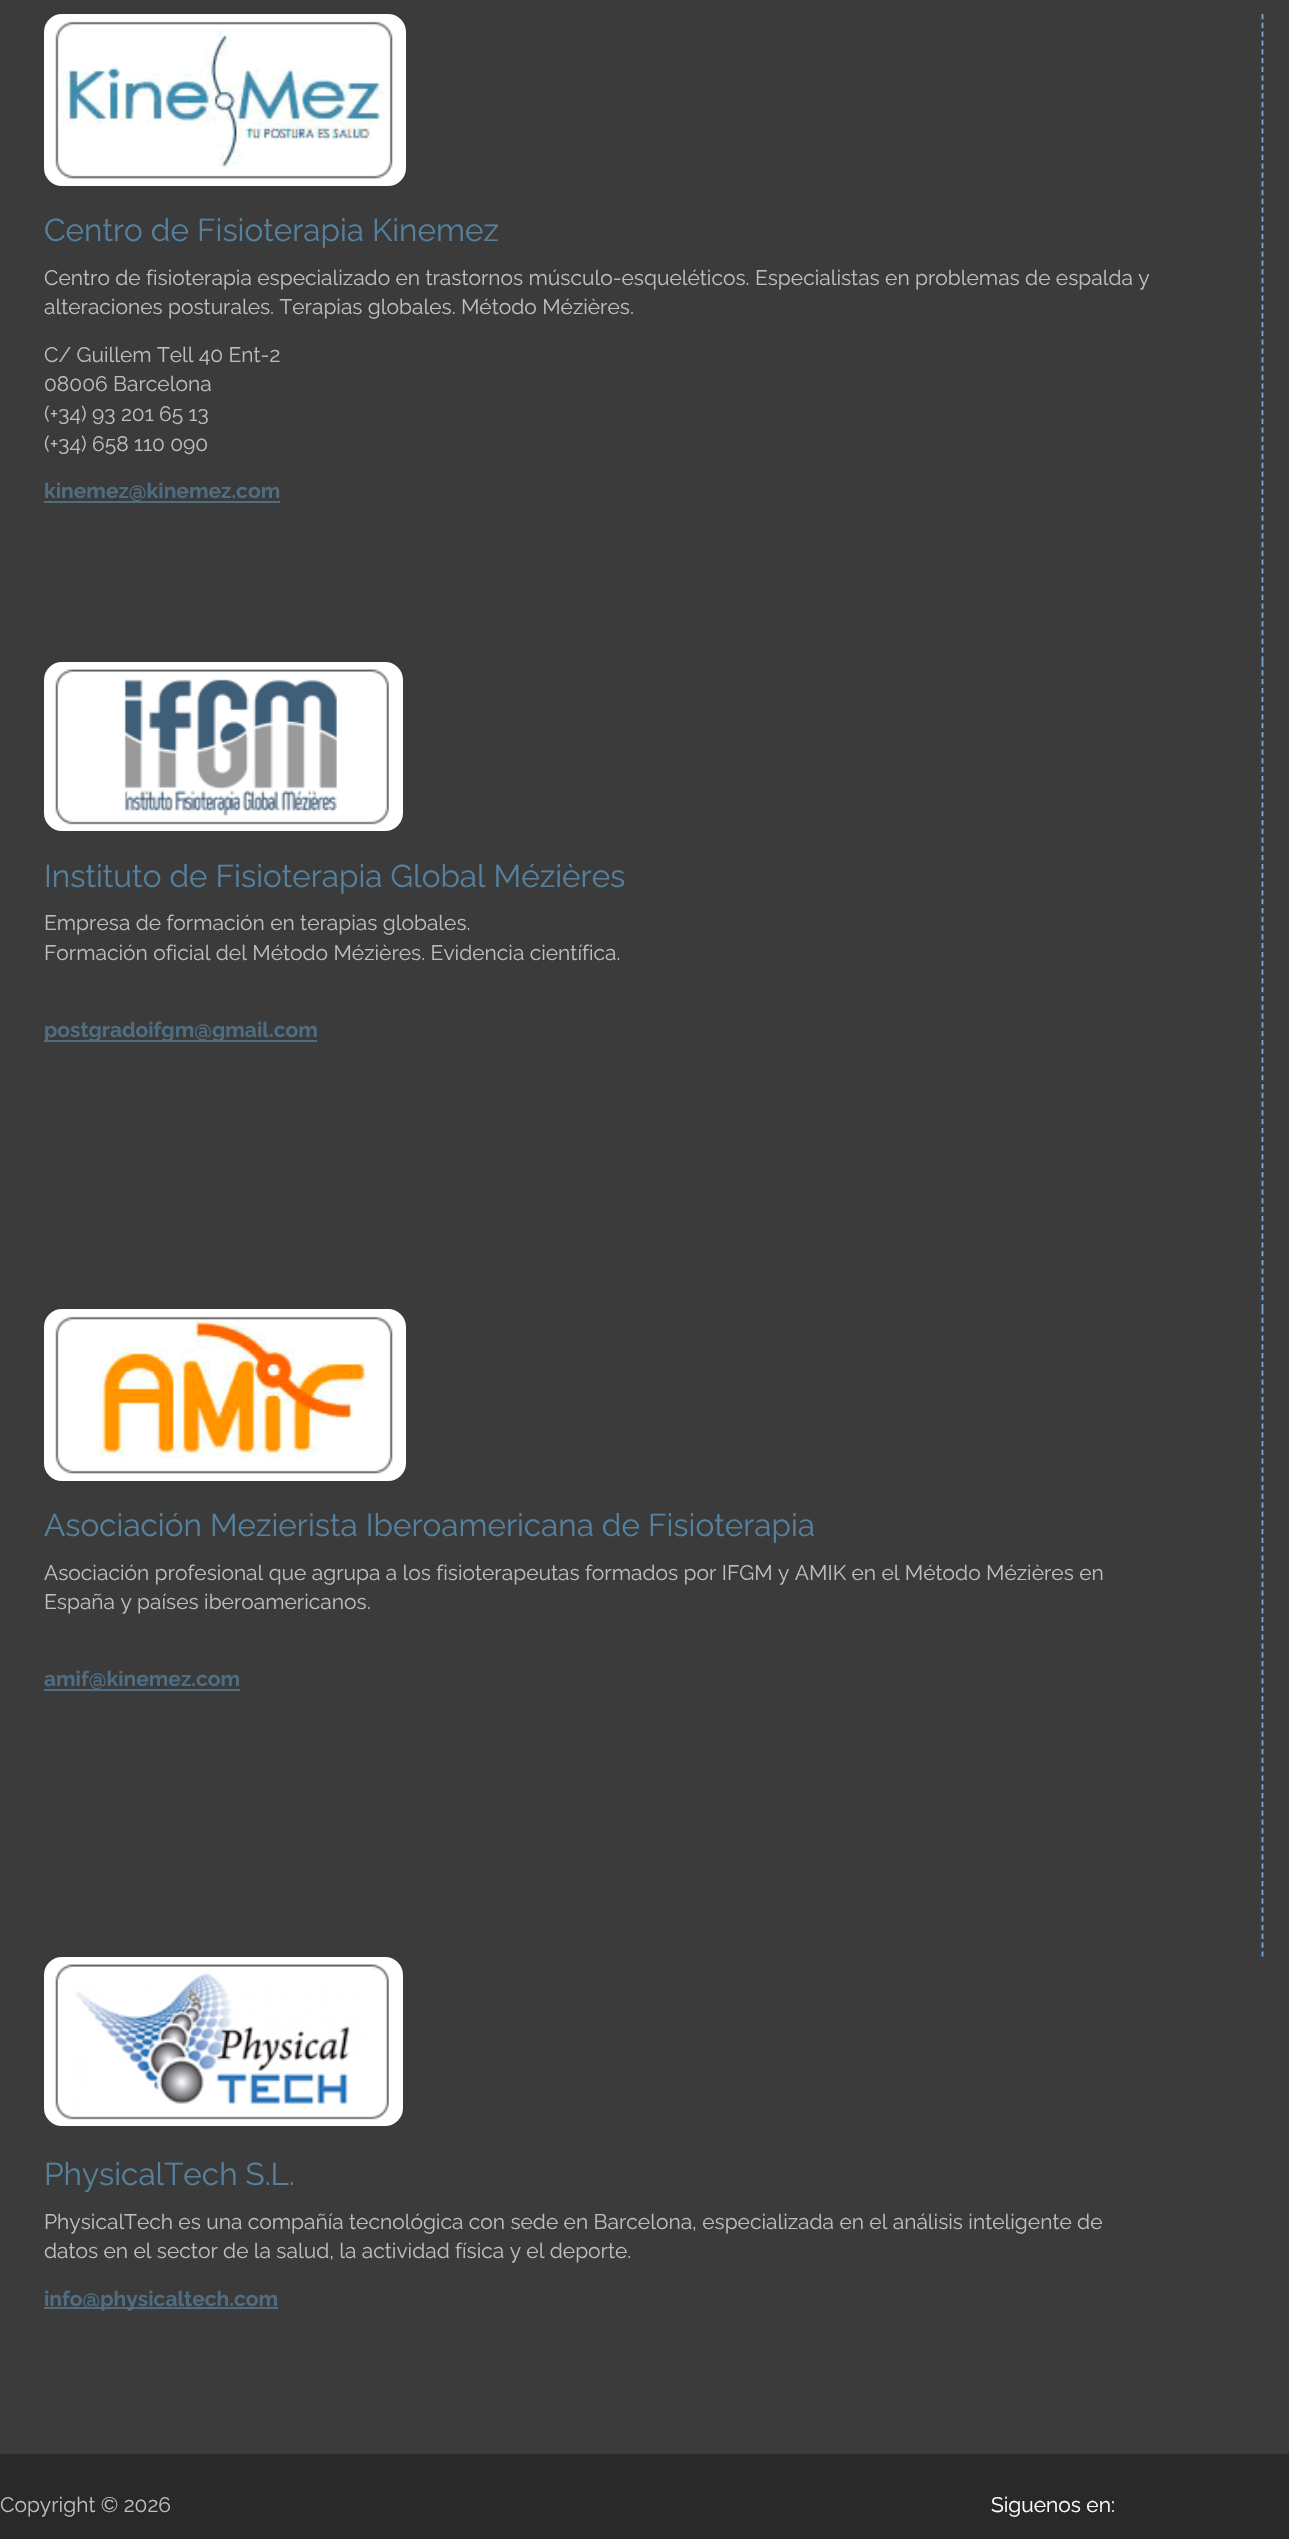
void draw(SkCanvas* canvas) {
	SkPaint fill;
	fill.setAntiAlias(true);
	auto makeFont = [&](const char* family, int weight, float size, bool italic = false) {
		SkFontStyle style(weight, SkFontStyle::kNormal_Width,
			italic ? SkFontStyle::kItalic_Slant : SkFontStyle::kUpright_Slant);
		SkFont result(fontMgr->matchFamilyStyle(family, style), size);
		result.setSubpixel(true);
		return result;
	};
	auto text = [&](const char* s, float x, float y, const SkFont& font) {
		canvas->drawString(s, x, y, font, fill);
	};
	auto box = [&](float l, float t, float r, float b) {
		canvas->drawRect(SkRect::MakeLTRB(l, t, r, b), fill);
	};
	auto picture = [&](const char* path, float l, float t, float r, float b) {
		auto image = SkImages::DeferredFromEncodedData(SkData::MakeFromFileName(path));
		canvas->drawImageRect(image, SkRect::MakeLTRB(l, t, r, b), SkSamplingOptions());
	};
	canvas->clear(0xFF3B3B3B);
	fill.setStyle(SkPaint::kStroke_Style);
	fill.setStrokeWidth(1.8f);
	fill.setColor(0xFF7CA5DA);
	fill.setPathEffect(SkDashPathEffect::Make({{5.25f, 3.55f}}, 0));
	canvas->drawPath(SkPathBuilder().moveTo(1262.5f, 14).lineTo(1262.5f, 661.5f).detach(), fill);
	fill.setPathEffect(nullptr);
	fill.setStyle(SkPaint::kFill_Style);
	fill.setColor(0xFFFFFFFF);
	canvas->drawRoundRect(SkRect::MakeLTRB(45, 15, 405, 185), 17, 17, fill);
	fill.setStyle(SkPaint::kStroke_Style);
	fill.setStrokeWidth(2);
	canvas->drawRoundRect(SkRect::MakeLTRB(45, 15, 405, 185), 17, 17, fill);
	picture("image0.png", 55, 21, 393, 179);
	fill.setStyle(SkPaint::kFill_Style);
	fill.setColor(0xFF4E6D82);
	box(44, 501, 280, 503);
	fill.setStyle(SkPaint::kStroke_Style);
	fill.setStrokeWidth(1.8f);
	fill.setColor(0xFF7CA5DA);
	fill.setPathEffect(SkDashPathEffect::Make({{5.25f, 3.55f}}, 0));
	canvas->drawPath(SkPathBuilder().moveTo(1262.5f, 661.5f).lineTo(1262.5f, 1309).detach(), fill);
	fill.setPathEffect(nullptr);
	fill.setStyle(SkPaint::kFill_Style);
	fill.setColor(0xFFFFFFFF);
	canvas->drawRoundRect(SkRect::MakeLTRB(45, 663, 402, 830), 17, 17, fill);
	fill.setStyle(SkPaint::kStroke_Style);
	fill.setStrokeWidth(2);
	canvas->drawRoundRect(SkRect::MakeLTRB(45, 663, 402, 830), 17, 17, fill);
	picture("image1.png", 55, 669, 389, 825);
	fill.setStyle(SkPaint::kFill_Style);
	fill.setColor(0xFF4E6D82);
	box(44, 1040, 317, 1042);
	fill.setStyle(SkPaint::kStroke_Style);
	fill.setStrokeWidth(1.8f);
	fill.setColor(0xFF7CA5DA);
	fill.setPathEffect(SkDashPathEffect::Make({{5.25f, 3.55f}}, 0));
	canvas->drawPath(SkPathBuilder().moveTo(1262.5f, 1309).lineTo(1262.5f, 1956.5f).detach(), fill);
	fill.setPathEffect(nullptr);
	fill.setStyle(SkPaint::kFill_Style);
	fill.setColor(0xFFFFFFFF);
	canvas->drawRoundRect(SkRect::MakeLTRB(45, 1310, 405, 1480), 17, 17, fill);
	fill.setStyle(SkPaint::kStroke_Style);
	fill.setStrokeWidth(2);
	canvas->drawRoundRect(SkRect::MakeLTRB(45, 1310, 405, 1480), 17, 17, fill);
	picture("image2.png", 55, 1316, 393, 1474);
	fill.setStyle(SkPaint::kFill_Style);
	fill.setColor(0xFF4E6D82);
	box(44, 1689, 240, 1691);
	fill.setColor(0xFFFFFFFF);
	canvas->drawRoundRect(SkRect::MakeLTRB(45, 1958, 402, 2125), 17, 17, fill);
	fill.setStyle(SkPaint::kStroke_Style);
	canvas->drawRoundRect(SkRect::MakeLTRB(45, 1958, 402, 2125), 17, 17, fill);
	picture("image3.png", 55, 1964, 389, 2120);
	fill.setStyle(SkPaint::kFill_Style);
	fill.setColor(0xFF4E6D82);
	box(44, 2307, 278, 2309);
	fill.setColor(0xFF292929);
	box(0, 2454, 1289, 2539);
	auto font1 = makeFont("Raleway", 400, 31.5f);
	fill.setColor(0xFF56819E);
	text("Centro de Fisioterapia Kinemez", 44, 241, font1);
	auto font2 = makeFont("Raleway", 400, 21);
	fill.setColor(0xFFBCBDBC);
	text("Centro de fisioterapia especializado en trastornos músculo-esqueléticos. Especialistas en problemas de espalda y", 44, 285, font2);
	text("alteraciones posturales. Terapias globales. Método Mézières.", 44, 314, font2);
	text("C/ Guillem Tell 40 Ent-2", 44, 362, font2);
	text("08006 Barcelona", 44, 391, font2);
	text("(+34) 93 201 65 13", 44, 421, font2);
	text("(+34) 658 110 090", 44, 451, font2);
	auto font3 = makeFont("Raleway", 700, 21);
	fill.setColor(0xFF4E6D82);
	text("kinemez@kinemez.com", 44, 498, font3);
	fill.setColor(0xFF56819E);
	text("Instituto de Fisioterapia Global Mézières", 44, 887, font1);
	fill.setColor(0xFFBCBDBC);
	text("Empresa de formación en terapias globales.", 44, 930, font2);
	text("Formación oficial del Método Mézières. Evidencia científica.", 44, 960, font2);
	fill.setColor(0xFF4E6D82);
	text("postgradoifgm@gmail.com", 44, 1037, font3);
	fill.setColor(0xFF56819E);
	text("Asociación Mezierista Iberoamericana de Fisioterapia", 44, 1536, font1);
	fill.setColor(0xFFBCBDBC);
	text("Asociación profesional que agrupa a los fisioterapeutas formados por IFGM y AMIK en el Método Mézières en", 44, 1580, font2);
	text("España y países iberoamericanos.", 44, 1609, font2);
	fill.setColor(0xFF4E6D82);
	text("amif@kinemez.com", 44, 1686, font3);
	fill.setColor(0xFF56819E);
	text("PhysicalTech S.L.", 44, 2185, font1);
	fill.setColor(0xFFBCBDBC);
	text("PhysicalTech es una compañía tecnológica con sede en Barcelona, especializada en el análisis inteligente de", 44, 2229, font2);
	text("datos en el sector de la salud, la actividad física y el deporte.", 44, 2258, font2);
	fill.setColor(0xFF4E6D82);
	text("info@physicaltech.com", 44, 2306, font3);
	fill.setColor(0xFFBCBDBC);
	text("Copyright © 2026", 0, 2512, font2);
	fill.setColor(0xFFFFFFFF);
	text("Siguenos en:", 991, 2512, font2);
}
